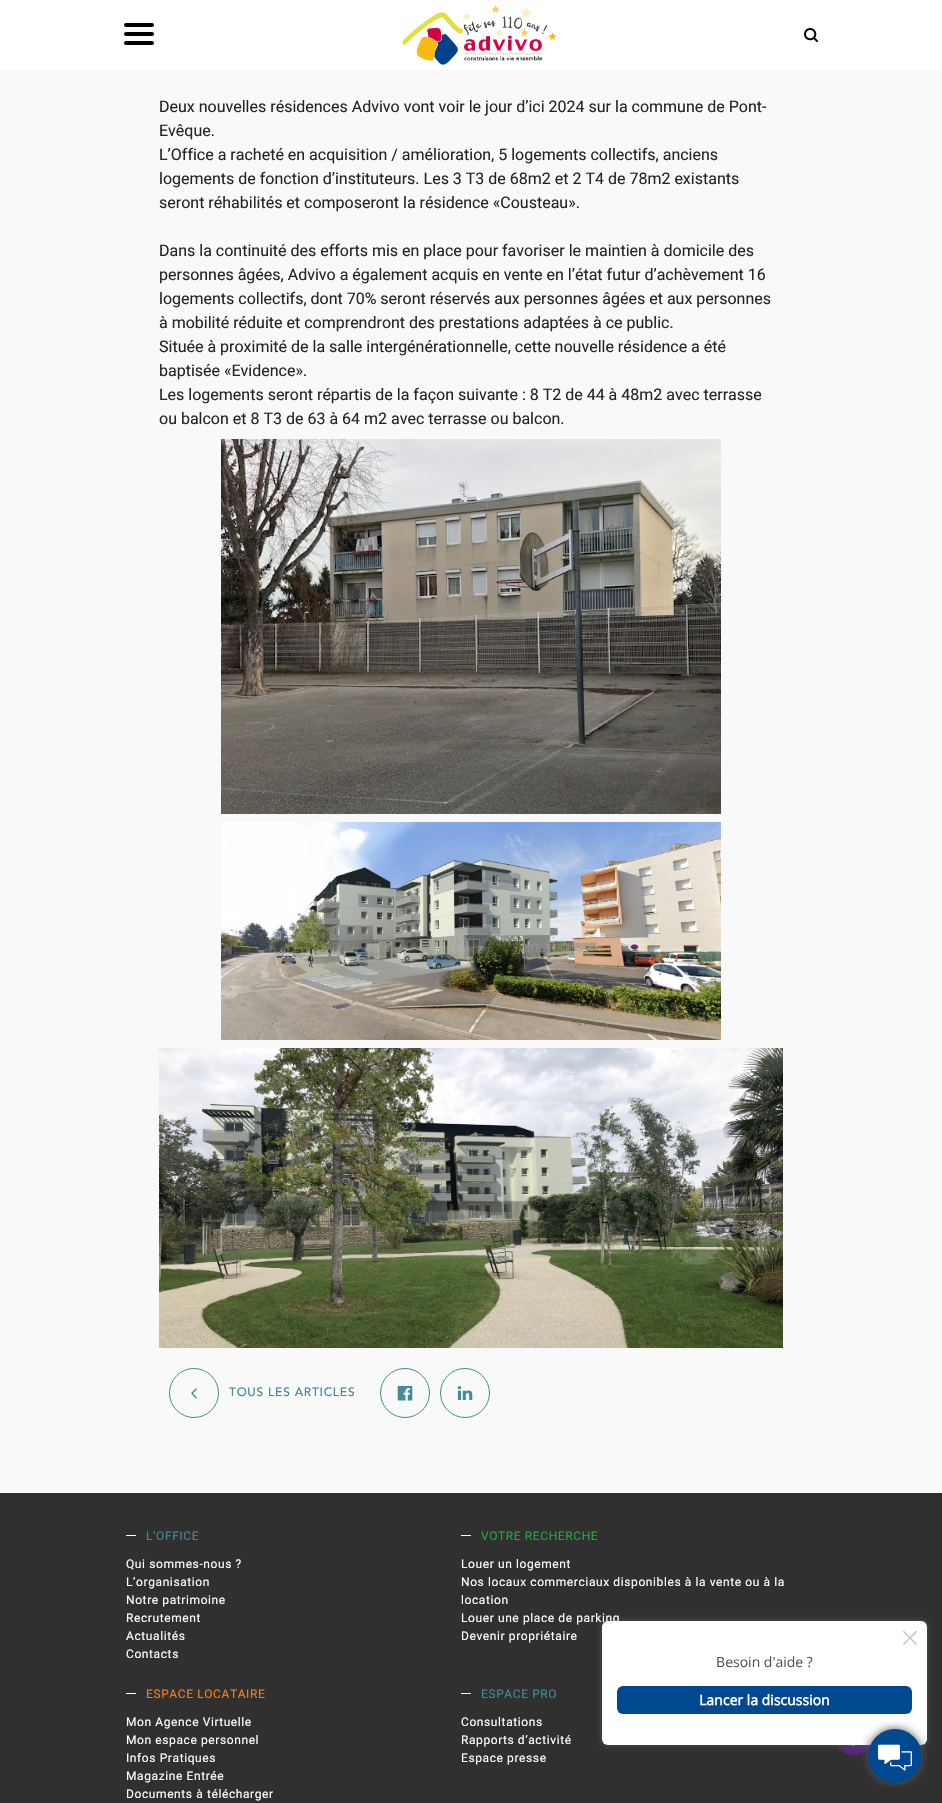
void draw(SkCanvas* canvas) {
	SkPaint fill;
	fill.setAntiAlias(true);
	auto makeFont = [&](const char* family, int weight, float size, bool italic = false) {
		SkFontStyle style(weight, SkFontStyle::kNormal_Width,
			italic ? SkFontStyle::kItalic_Slant : SkFontStyle::kUpright_Slant);
		SkFont result(fontMgr->matchFamilyStyle(family, style), size);
		result.setSubpixel(true);
		return result;
	};
	auto text = [&](const char* s, float x, float y, const SkFont& font) {
		canvas->drawString(s, x, y, font, fill);
	};
	auto spacedText = [&](const char* s, float x, float y, const SkFont& font, const SkPaint& ink, float letter, float word) {
		std::vector<SkGlyphID> glyphs(font.countText(s, strlen(s), SkTextEncoding::kUTF8));
		std::vector<float> xs(glyphs.size());
		font.textToGlyphs(s, strlen(s), SkTextEncoding::kUTF8, glyphs);
		font.getXPos(glyphs, xs, x);
		float extra = 0;
		for (size_t i = 0; i < glyphs.size(); i++) {
			xs[i] += extra;
			extra += letter + word * (glyphs[i] == font.unicharToGlyph(' '));
		}
		canvas->drawTextBlob(SkTextBlob::MakeFromPosHGlyphs(glyphs, xs, y, font), 0, 0, ink);
	};
	auto box = [&](float l, float t, float r, float b) {
		canvas->drawRect(SkRect::MakeLTRB(l, t, r, b), fill);
	};
	auto roundBox = [&](float l, float t, float r, float b, float radius) {
		canvas->drawRoundRect(SkRect::MakeLTRB(l, t, r, b), radius, radius, fill);
	};
	auto picture = [&](const char* path, float l, float t, float r, float b) {
		auto image = SkImages::DeferredFromEncodedData(SkData::MakeFromFileName(path));
		canvas->drawImageRect(image, SkRect::MakeLTRB(l, t, r, b), SkSamplingOptions());
	};
	canvas->clear(0xFFF9F9F9);
	fill.setColor(0xFFFFFFFF);
	box(0, 0, 942, 70);
	fill.setColor(0xFF000000);
	roundBox(124, 23, 154, 27, 2);
	roundBox(124, 32, 154, 36, 2);
	roundBox(124, 41, 154, 45, 2);
	picture("image0.png", 402, 5, 556, 65);
	picture("image1.png", 804, 28, 818, 42);
	picture("image2.png", 221, 439, 721, 814);
	picture("image3.png", 221, 822, 721, 1040);
	picture("image4.png", 159, 1048, 783, 1348);
	fill.setStyle(SkPaint::kStroke_Style);
	fill.setStrokeWidth(1);
	fill.setColor(0xFF458A95);
	canvas->drawCircle(194, 1393, 24.5f, fill);
	picture("image5.png", 191, 1388, 197, 1399);
	canvas->drawCircle(405, 1393, 24.5f, fill);
	picture("image6.png", 397, 1385, 413, 1401);
	canvas->drawCircle(465, 1393, 24.5f, fill);
	picture("image7.png", 457, 1386, 473, 1401);
	fill.setStyle(SkPaint::kFill_Style);
	fill.setColor(0xFF303030);
	box(0, 1493, 942, 1803);
	fill.setColor(0xFFFFFFFF);
	box(126, 1535, 136, 1536);
	box(461, 1535, 471, 1536);
	box(126, 1693, 136, 1694);
	box(461, 1693, 471, 1694);
	picture("image10.png", 836, 1745, 871, 1755);
	fill.setColor(0x7D555555);
	fill.setMaskFilter(SkMaskFilter::MakeBlur(kNormal_SkBlurStyle, 2.5f));
	canvas->drawRoundRect(SkRect::MakeLTRB(600, 1619, 929, 1747), 8, 8, fill);
	fill.setMaskFilter(nullptr);
	auto font1 = makeFont("Roboto", 400, 16);
	fill.setColor(0xFF212529);
	text("Deux nouvelles résidences Advivo vont voir le jour d’ici 2024 sur la commune de Pont-", 159, 112, font1);
	text("Evêque.", 159, 136, font1);
	text("L’Office a racheté en acquisition / amélioration, 5 logements collectifs, anciens", 159, 160, font1);
	text("logements de fonction d’instituteurs. Les 3 T3 de 68m2 et 2 T4 de 78m2 existants", 159, 184, font1);
	text("seront réhabilités et composeront la résidence «Cousteau».", 159, 208, font1);
	text("Dans la continuité des efforts mis en place pour favoriser le maintien à domicile des", 159, 256, font1);
	text("personnes âgées, Advivo a également acquis en vente en l’état futur d’achèvement 16", 159, 280, font1);
	text("logements collectifs, dont 70% seront réservés aux personnes âgées et aux personnes", 159, 304, font1);
	text("à mobilité réduite et comprendront des prestations adaptées à ce public.", 159, 328, font1);
	text("Située à proximité de la salle intergénérationnelle, cette nouvelle résidence a été", 159, 352, font1);
	text("baptisée «Evidence».", 159, 376, font1);
	text("Les logements seront répartis de la façon suivante : 8 T2 de 44 à 48m2 avec terrasse", 159, 400, font1);
	text("ou balcon et 8 T3 de 63 à 64 m2 avec terrasse ou balcon.", 159, 424, font1);
	auto font2 = makeFont("Avenir", 500, 12);
	fill.setColor(0xFF458A95);
	spacedText("TOUS LES ARTICLES", 229, 1396, font2, fill, 0.75f, 0);
	auto font3 = makeFont("Roboto", 400, 12);
	spacedText("L’OFFICE", 146, 1540, font3, fill, 0.6f, 0);
	fill.setColor(0xFFFFFFFF);
	spacedText("Qui sommes-nous ?", 126, 1568, font3, fill, 0.6f, 0);
	spacedText("L’organisation", 126, 1586, font3, fill, 0.6f, 0);
	spacedText("Notre patrimoine", 126, 1604, font3, fill, 0.6f, 0);
	spacedText("Recrutement", 126, 1622, font3, fill, 0.6f, 0);
	spacedText("Actualités", 126, 1640, font3, fill, 0.6f, 0);
	spacedText("Contacts", 126, 1658, font3, fill, 0.6f, 0);
	fill.setColor(0xFF28A745);
	spacedText("VOTRE RECHERCHE", 481, 1540, font3, fill, 0.6f, 0);
	fill.setColor(0xFFFFFFFF);
	spacedText("Louer un logement", 461, 1568, font3, fill, 0.6f, 0);
	spacedText("Nos locaux commerciaux disponibles à la vente ou à la", 461, 1586, font3, fill, 0.6f, 0);
	spacedText("location", 461, 1604, font3, fill, 0.6f, 0);
	spacedText("Louer une place de parking", 461, 1622, font3, fill, 0.6f, 0);
	spacedText("Devenir propriétaire", 461, 1640, font3, fill, 0.6f, 0);
	fill.setColor(0xFFFD7E14);
	spacedText("ESPACE LOCATAIRE", 146, 1698, font3, fill, 0.6f, 0);
	fill.setColor(0xFFFFFFFF);
	spacedText("Mon Agence Virtuelle", 126, 1726, font3, fill, 0.6f, 0);
	spacedText("Mon espace personnel", 126, 1744, font3, fill, 0.6f, 0);
	spacedText("Infos Pratiques", 126, 1762, font3, fill, 0.6f, 0);
	spacedText("Magazine Entrée", 126, 1780, font3, fill, 0.6f, 0);
	spacedText("Documents à télécharger", 126, 1798, font3, fill, 0.6f, 0);
	fill.setColor(0xFF458A95);
	spacedText("ESPACE PRO", 481, 1698, font3, fill, 0.6f, 0);
	fill.setColor(0xFFFFFFFF);
	spacedText("Consultations", 461, 1726, font3, fill, 0.6f, 0);
	spacedText("Rapports d’activité", 461, 1744, font3, fill, 0.6f, 0);
	spacedText("Espace presse", 461, 1762, font3, fill, 0.6f, 0);
	picture("image8.png", 602, 1621, 927, 1745);
	picture("image9.png", 862, 1721, 927, 1788);
}
